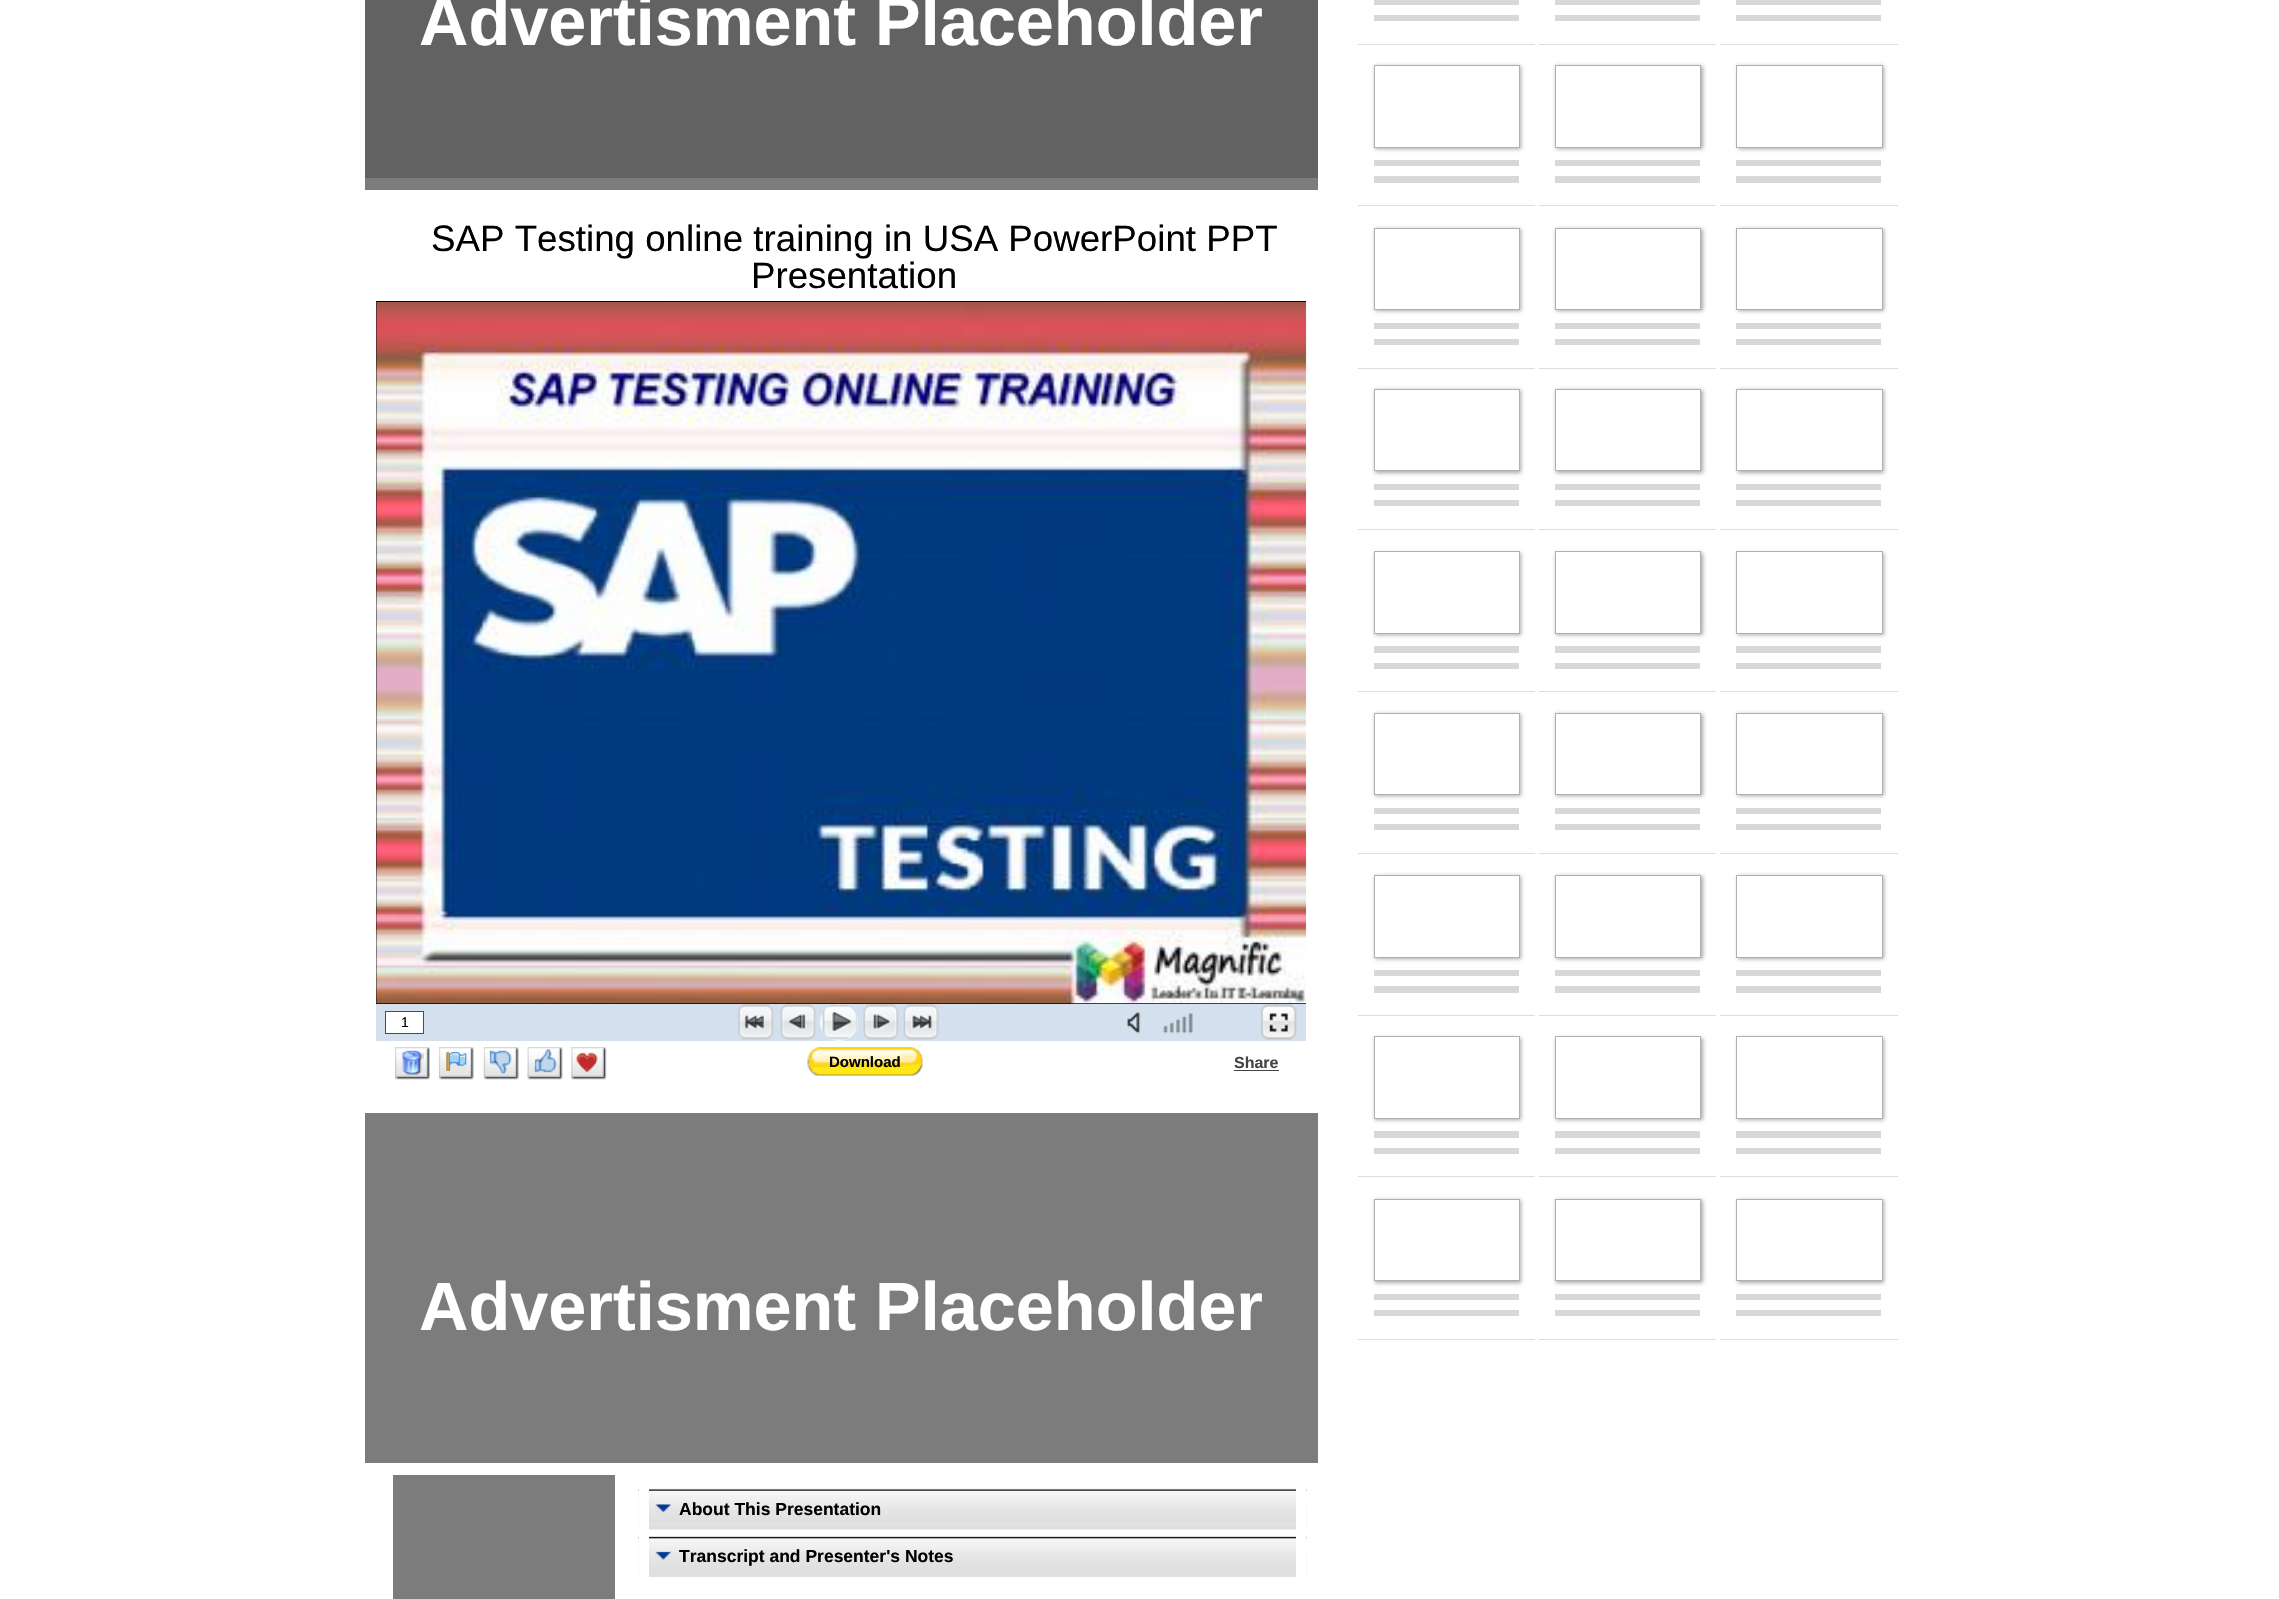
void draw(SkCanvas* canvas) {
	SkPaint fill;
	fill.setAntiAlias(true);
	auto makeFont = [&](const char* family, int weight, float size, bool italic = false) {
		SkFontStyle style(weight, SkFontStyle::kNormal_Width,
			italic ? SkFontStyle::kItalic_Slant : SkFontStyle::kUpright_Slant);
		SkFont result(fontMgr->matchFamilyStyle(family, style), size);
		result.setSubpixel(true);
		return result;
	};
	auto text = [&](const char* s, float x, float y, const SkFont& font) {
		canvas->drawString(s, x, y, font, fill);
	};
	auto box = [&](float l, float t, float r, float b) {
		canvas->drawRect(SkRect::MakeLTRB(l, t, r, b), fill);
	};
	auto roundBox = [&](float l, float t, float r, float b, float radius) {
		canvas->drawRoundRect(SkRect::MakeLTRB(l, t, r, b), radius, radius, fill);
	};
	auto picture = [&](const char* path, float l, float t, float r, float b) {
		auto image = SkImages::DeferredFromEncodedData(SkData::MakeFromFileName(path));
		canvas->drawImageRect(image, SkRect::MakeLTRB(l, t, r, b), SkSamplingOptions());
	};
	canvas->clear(0xFFFFFFFF);
	fill.setColor(0xFF7C7C7C);
	box(365, 178, 1318, 190);
	fill.setColor(0xFF626262);
	box(365, 0, 1318, 178);
	fill.setColor(0xFF000000);
	box(376, 301, 1306, 1004);
	picture("image0.png", 376, 302, 1307, 1004);
	fill.setColor(0xFFD4E0ED);
	box(376, 1004, 1306, 1041);
	fill.setColor(0xFFFFFFFF);
	canvas->drawRect(SkRect::MakeLTRB(385.5f, 1011.5f, 423.5f, 1033.5f), fill);
	fill.setStyle(SkPaint::kStroke_Style);
	fill.setStrokeWidth(1);
	fill.setColor(0xFF008000);
	canvas->drawRect(SkRect::MakeLTRB(385.5f, 1011.5f, 423.5f, 1033.5f), fill);
	picture("image1.png", 737, 1004, 774, 1040);
	picture("image2.png", 780, 1004, 816, 1040);
	fill.setStyle(SkPaint::kFill_Style);
	fill.setColor(0xFFF0FFFF);
	roundBox(820, 1004, 858, 1041, 18.5f);
	picture("image3.png", 822, 1004, 858, 1040);
	picture("image4.png", 863, 1004, 899, 1040);
	picture("image5.png", 903, 1004, 939, 1040);
	picture("image6.png", 1127, 1012, 1141, 1034);
	picture("image7.png", 1163, 1013, 1193, 1034);
	picture("image8.png", 1261, 1004, 1297, 1040);
	picture("image9.png", 395, 1047, 430, 1080);
	picture("image10.png", 438, 1047, 474, 1080);
	picture("image11.png", 483, 1047, 519, 1080);
	picture("image12.png", 527, 1047, 563, 1080);
	picture("image13.png", 571, 1047, 607, 1080);
	picture("image14.png", 807, 1047, 923, 1076);
	fill.setColor(0xFF444444);
	box(1234, 1070, 1279, 1071);
	fill.setColor(0xFF7C7C7C);
	box(365, 1113, 1318, 1463);
	box(393, 1475, 615, 1599);
	picture("image15.png", 638, 1488, 1307, 1530);
	fill.setColor(0xFFFFFFFF);
	box(639, 1488, 649, 1530);
	picture("image16.png", 655, 1504, 672, 1513);
	box(1296, 1488, 1306, 1530);
	picture("image17.png", 638, 1536, 1307, 1577);
	box(639, 1536, 649, 1577);
	picture("image18.png", 655, 1551, 672, 1560);
	box(1296, 1536, 1306, 1577);
	fill.setColor(0xFFDDDDDD);
	box(1358, 44, 1535, 45);
	fill.setColor(0xFFD8D8D8);
	box(1374, 0, 1519, 5);
	box(1374, 15, 1519, 21);
	fill.setColor(0xFFDDDDDD);
	box(1539, 44, 1716, 45);
	fill.setColor(0xFFD8D8D8);
	box(1555, 0, 1700, 5);
	box(1555, 15, 1700, 21);
	fill.setColor(0xFFDDDDDD);
	box(1720, 44, 1898, 45);
	fill.setColor(0xFFD8D8D8);
	box(1736, 0, 1881, 5);
	box(1736, 15, 1881, 21);
	fill.setColor(0xFFDDDDDD);
	box(1358, 205, 1535, 206);
	canvas->save();
	canvas->clipPath(SkPathBuilder(SkPathFillType::kEvenOdd).moveTo(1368, 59).lineTo(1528, 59).lineTo(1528, 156).lineTo(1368, 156).close().moveTo(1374, 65).lineTo(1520, 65).lineTo(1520, 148).lineTo(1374, 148).close().detach(), true);
	fill.setColor(0xFFAAAAAA);
	fill.setMaskFilter(SkMaskFilter::MakeBlur(kNormal_SkBlurStyle, 2));
	canvas->drawRect(SkRect::MakeLTRB(1375, 66, 1521, 149), fill);
	fill.setMaskFilter(nullptr);
	canvas->restore();
	fill.setStyle(SkPaint::kStroke_Style);
	fill.setColor(0xFFB0B0B0);
	canvas->drawRect(SkRect::MakeLTRB(1374.5f, 65.5f, 1519.5f, 147.5f), fill);
	fill.setStyle(SkPaint::kFill_Style);
	fill.setColor(0xFFD8D8D8);
	box(1374, 160, 1519, 166);
	box(1374, 176, 1519, 183);
	fill.setColor(0xFFDDDDDD);
	box(1539, 205, 1716, 206);
	canvas->save();
	canvas->clipPath(SkPathBuilder(SkPathFillType::kEvenOdd).moveTo(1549, 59).lineTo(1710, 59).lineTo(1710, 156).lineTo(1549, 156).close().moveTo(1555, 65).lineTo(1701, 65).lineTo(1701, 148).lineTo(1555, 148).close().detach(), true);
	fill.setColor(0xFFAAAAAA);
	fill.setMaskFilter(SkMaskFilter::MakeBlur(kNormal_SkBlurStyle, 2));
	canvas->drawRect(SkRect::MakeLTRB(1556, 66, 1703, 149), fill);
	fill.setMaskFilter(nullptr);
	canvas->restore();
	fill.setStyle(SkPaint::kStroke_Style);
	fill.setColor(0xFFB0B0B0);
	canvas->drawRect(SkRect::MakeLTRB(1555.5f, 65.5f, 1700.5f, 147.5f), fill);
	fill.setStyle(SkPaint::kFill_Style);
	fill.setColor(0xFFD8D8D8);
	box(1555, 160, 1700, 166);
	box(1555, 176, 1700, 183);
	fill.setColor(0xFFDDDDDD);
	box(1720, 205, 1898, 206);
	canvas->save();
	canvas->clipPath(SkPathBuilder(SkPathFillType::kEvenOdd).moveTo(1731, 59).lineTo(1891, 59).lineTo(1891, 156).lineTo(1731, 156).close().moveTo(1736, 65).lineTo(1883, 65).lineTo(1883, 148).lineTo(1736, 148).close().detach(), true);
	fill.setColor(0xFFAAAAAA);
	fill.setMaskFilter(SkMaskFilter::MakeBlur(kNormal_SkBlurStyle, 2));
	canvas->drawRect(SkRect::MakeLTRB(1738, 66, 1884, 149), fill);
	fill.setMaskFilter(nullptr);
	canvas->restore();
	fill.setStyle(SkPaint::kStroke_Style);
	fill.setColor(0xFFB0B0B0);
	canvas->drawRect(SkRect::MakeLTRB(1736.5f, 65.5f, 1882.5f, 147.5f), fill);
	fill.setStyle(SkPaint::kFill_Style);
	fill.setColor(0xFFD8D8D8);
	box(1736, 160, 1881, 166);
	box(1736, 176, 1881, 183);
	fill.setColor(0xFFDDDDDD);
	box(1358, 368, 1535, 369);
	canvas->save();
	canvas->clipPath(SkPathBuilder(SkPathFillType::kEvenOdd).moveTo(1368, 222).lineTo(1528, 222).lineTo(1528, 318).lineTo(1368, 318).close().moveTo(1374, 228).lineTo(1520, 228).lineTo(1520, 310).lineTo(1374, 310).close().detach(), true);
	fill.setColor(0xFFAAAAAA);
	fill.setMaskFilter(SkMaskFilter::MakeBlur(kNormal_SkBlurStyle, 2));
	canvas->drawRect(SkRect::MakeLTRB(1375, 229, 1521, 311), fill);
	fill.setMaskFilter(nullptr);
	canvas->restore();
	fill.setStyle(SkPaint::kStroke_Style);
	fill.setColor(0xFFB0B0B0);
	canvas->drawRect(SkRect::MakeLTRB(1374.5f, 228.5f, 1519.5f, 309.5f), fill);
	fill.setStyle(SkPaint::kFill_Style);
	fill.setColor(0xFFD8D8D8);
	box(1374, 323, 1519, 329);
	box(1374, 339, 1519, 345);
	fill.setColor(0xFFDDDDDD);
	box(1539, 368, 1716, 369);
	canvas->save();
	canvas->clipPath(SkPathBuilder(SkPathFillType::kEvenOdd).moveTo(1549, 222).lineTo(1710, 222).lineTo(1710, 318).lineTo(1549, 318).close().moveTo(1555, 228).lineTo(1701, 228).lineTo(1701, 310).lineTo(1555, 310).close().detach(), true);
	fill.setColor(0xFFAAAAAA);
	fill.setMaskFilter(SkMaskFilter::MakeBlur(kNormal_SkBlurStyle, 2));
	canvas->drawRect(SkRect::MakeLTRB(1556, 229, 1703, 311), fill);
	fill.setMaskFilter(nullptr);
	canvas->restore();
	fill.setStyle(SkPaint::kStroke_Style);
	fill.setColor(0xFFB0B0B0);
	canvas->drawRect(SkRect::MakeLTRB(1555.5f, 228.5f, 1700.5f, 309.5f), fill);
	fill.setStyle(SkPaint::kFill_Style);
	fill.setColor(0xFFD8D8D8);
	box(1555, 323, 1700, 329);
	box(1555, 339, 1700, 345);
	fill.setColor(0xFFDDDDDD);
	box(1720, 368, 1898, 369);
	canvas->save();
	canvas->clipPath(SkPathBuilder(SkPathFillType::kEvenOdd).moveTo(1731, 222).lineTo(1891, 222).lineTo(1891, 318).lineTo(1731, 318).close().moveTo(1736, 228).lineTo(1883, 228).lineTo(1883, 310).lineTo(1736, 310).close().detach(), true);
	fill.setColor(0xFFAAAAAA);
	fill.setMaskFilter(SkMaskFilter::MakeBlur(kNormal_SkBlurStyle, 2));
	canvas->drawRect(SkRect::MakeLTRB(1738, 229, 1884, 311), fill);
	fill.setMaskFilter(nullptr);
	canvas->restore();
	fill.setStyle(SkPaint::kStroke_Style);
	fill.setColor(0xFFB0B0B0);
	canvas->drawRect(SkRect::MakeLTRB(1736.5f, 228.5f, 1882.5f, 309.5f), fill);
	fill.setStyle(SkPaint::kFill_Style);
	fill.setColor(0xFFD8D8D8);
	box(1736, 323, 1881, 329);
	box(1736, 339, 1881, 345);
	fill.setColor(0xFFDDDDDD);
	box(1358, 529, 1535, 530);
	canvas->save();
	canvas->clipPath(SkPathBuilder(SkPathFillType::kEvenOdd).moveTo(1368, 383).lineTo(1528, 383).lineTo(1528, 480).lineTo(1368, 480).close().moveTo(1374, 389).lineTo(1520, 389).lineTo(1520, 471).lineTo(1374, 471).close().detach(), true);
	fill.setColor(0xFFAAAAAA);
	fill.setMaskFilter(SkMaskFilter::MakeBlur(kNormal_SkBlurStyle, 2));
	canvas->drawRect(SkRect::MakeLTRB(1375, 390, 1521, 473), fill);
	fill.setMaskFilter(nullptr);
	canvas->restore();
	fill.setStyle(SkPaint::kStroke_Style);
	fill.setColor(0xFFB0B0B0);
	canvas->drawRect(SkRect::MakeLTRB(1374.5f, 389.5f, 1519.5f, 470.5f), fill);
	fill.setStyle(SkPaint::kFill_Style);
	fill.setColor(0xFFD8D8D8);
	box(1374, 484, 1519, 490);
	box(1374, 500, 1519, 506);
	fill.setColor(0xFFDDDDDD);
	box(1539, 529, 1716, 530);
	canvas->save();
	canvas->clipPath(SkPathBuilder(SkPathFillType::kEvenOdd).moveTo(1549, 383).lineTo(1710, 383).lineTo(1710, 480).lineTo(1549, 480).close().moveTo(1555, 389).lineTo(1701, 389).lineTo(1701, 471).lineTo(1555, 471).close().detach(), true);
	fill.setColor(0xFFAAAAAA);
	fill.setMaskFilter(SkMaskFilter::MakeBlur(kNormal_SkBlurStyle, 2));
	canvas->drawRect(SkRect::MakeLTRB(1556, 390, 1703, 473), fill);
	fill.setMaskFilter(nullptr);
	canvas->restore();
	fill.setStyle(SkPaint::kStroke_Style);
	fill.setColor(0xFFB0B0B0);
	canvas->drawRect(SkRect::MakeLTRB(1555.5f, 389.5f, 1700.5f, 470.5f), fill);
	fill.setStyle(SkPaint::kFill_Style);
	fill.setColor(0xFFD8D8D8);
	box(1555, 484, 1700, 490);
	box(1555, 500, 1700, 506);
	fill.setColor(0xFFDDDDDD);
	box(1720, 529, 1898, 530);
	canvas->save();
	canvas->clipPath(SkPathBuilder(SkPathFillType::kEvenOdd).moveTo(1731, 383).lineTo(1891, 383).lineTo(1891, 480).lineTo(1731, 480).close().moveTo(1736, 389).lineTo(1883, 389).lineTo(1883, 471).lineTo(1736, 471).close().detach(), true);
	fill.setColor(0xFFAAAAAA);
	fill.setMaskFilter(SkMaskFilter::MakeBlur(kNormal_SkBlurStyle, 2));
	canvas->drawRect(SkRect::MakeLTRB(1738, 390, 1884, 473), fill);
	fill.setMaskFilter(nullptr);
	canvas->restore();
	fill.setStyle(SkPaint::kStroke_Style);
	fill.setColor(0xFFB0B0B0);
	canvas->drawRect(SkRect::MakeLTRB(1736.5f, 389.5f, 1882.5f, 470.5f), fill);
	fill.setStyle(SkPaint::kFill_Style);
	fill.setColor(0xFFD8D8D8);
	box(1736, 484, 1881, 490);
	box(1736, 500, 1881, 506);
	fill.setColor(0xFFDDDDDD);
	box(1358, 691, 1535, 692);
	canvas->save();
	canvas->clipPath(SkPathBuilder(SkPathFillType::kEvenOdd).moveTo(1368, 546).lineTo(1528, 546).lineTo(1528, 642).lineTo(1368, 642).close().moveTo(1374, 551).lineTo(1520, 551).lineTo(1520, 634).lineTo(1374, 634).close().detach(), true);
	fill.setColor(0xFFAAAAAA);
	fill.setMaskFilter(SkMaskFilter::MakeBlur(kNormal_SkBlurStyle, 2));
	canvas->drawRect(SkRect::MakeLTRB(1375, 553, 1521, 635), fill);
	fill.setMaskFilter(nullptr);
	canvas->restore();
	fill.setStyle(SkPaint::kStroke_Style);
	fill.setColor(0xFFB0B0B0);
	canvas->drawRect(SkRect::MakeLTRB(1374.5f, 551.5f, 1519.5f, 633.5f), fill);
	fill.setStyle(SkPaint::kFill_Style);
	fill.setColor(0xFFD8D8D8);
	box(1374, 646, 1519, 653);
	box(1374, 663, 1519, 669);
	fill.setColor(0xFFDDDDDD);
	box(1539, 691, 1716, 692);
	canvas->save();
	canvas->clipPath(SkPathBuilder(SkPathFillType::kEvenOdd).moveTo(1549, 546).lineTo(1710, 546).lineTo(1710, 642).lineTo(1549, 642).close().moveTo(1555, 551).lineTo(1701, 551).lineTo(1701, 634).lineTo(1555, 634).close().detach(), true);
	fill.setColor(0xFFAAAAAA);
	fill.setMaskFilter(SkMaskFilter::MakeBlur(kNormal_SkBlurStyle, 2));
	canvas->drawRect(SkRect::MakeLTRB(1556, 553, 1703, 635), fill);
	fill.setMaskFilter(nullptr);
	canvas->restore();
	fill.setStyle(SkPaint::kStroke_Style);
	fill.setColor(0xFFB0B0B0);
	canvas->drawRect(SkRect::MakeLTRB(1555.5f, 551.5f, 1700.5f, 633.5f), fill);
	fill.setStyle(SkPaint::kFill_Style);
	fill.setColor(0xFFD8D8D8);
	box(1555, 646, 1700, 653);
	box(1555, 663, 1700, 669);
	fill.setColor(0xFFDDDDDD);
	box(1720, 691, 1898, 692);
	canvas->save();
	canvas->clipPath(SkPathBuilder(SkPathFillType::kEvenOdd).moveTo(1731, 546).lineTo(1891, 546).lineTo(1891, 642).lineTo(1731, 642).close().moveTo(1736, 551).lineTo(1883, 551).lineTo(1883, 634).lineTo(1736, 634).close().detach(), true);
	fill.setColor(0xFFAAAAAA);
	fill.setMaskFilter(SkMaskFilter::MakeBlur(kNormal_SkBlurStyle, 2));
	canvas->drawRect(SkRect::MakeLTRB(1738, 553, 1884, 635), fill);
	fill.setMaskFilter(nullptr);
	canvas->restore();
	fill.setStyle(SkPaint::kStroke_Style);
	fill.setColor(0xFFB0B0B0);
	canvas->drawRect(SkRect::MakeLTRB(1736.5f, 551.5f, 1882.5f, 633.5f), fill);
	fill.setStyle(SkPaint::kFill_Style);
	fill.setColor(0xFFD8D8D8);
	box(1736, 646, 1881, 653);
	box(1736, 663, 1881, 669);
	fill.setColor(0xFFDDDDDD);
	box(1358, 853, 1535, 854);
	canvas->save();
	canvas->clipPath(SkPathBuilder(SkPathFillType::kEvenOdd).moveTo(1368, 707).lineTo(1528, 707).lineTo(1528, 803).lineTo(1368, 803).close().moveTo(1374, 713).lineTo(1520, 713).lineTo(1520, 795).lineTo(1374, 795).close().detach(), true);
	fill.setColor(0xFFAAAAAA);
	fill.setMaskFilter(SkMaskFilter::MakeBlur(kNormal_SkBlurStyle, 2));
	canvas->drawRect(SkRect::MakeLTRB(1375, 714, 1521, 796), fill);
	fill.setMaskFilter(nullptr);
	canvas->restore();
	fill.setStyle(SkPaint::kStroke_Style);
	fill.setColor(0xFFB0B0B0);
	canvas->drawRect(SkRect::MakeLTRB(1374.5f, 713.5f, 1519.5f, 794.5f), fill);
	fill.setStyle(SkPaint::kFill_Style);
	fill.setColor(0xFFD8D8D8);
	box(1374, 808, 1519, 814);
	box(1374, 824, 1519, 830);
	fill.setColor(0xFFDDDDDD);
	box(1539, 853, 1716, 854);
	canvas->save();
	canvas->clipPath(SkPathBuilder(SkPathFillType::kEvenOdd).moveTo(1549, 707).lineTo(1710, 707).lineTo(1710, 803).lineTo(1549, 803).close().moveTo(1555, 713).lineTo(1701, 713).lineTo(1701, 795).lineTo(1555, 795).close().detach(), true);
	fill.setColor(0xFFAAAAAA);
	fill.setMaskFilter(SkMaskFilter::MakeBlur(kNormal_SkBlurStyle, 2));
	canvas->drawRect(SkRect::MakeLTRB(1556, 714, 1703, 796), fill);
	fill.setMaskFilter(nullptr);
	canvas->restore();
	fill.setStyle(SkPaint::kStroke_Style);
	fill.setColor(0xFFB0B0B0);
	canvas->drawRect(SkRect::MakeLTRB(1555.5f, 713.5f, 1700.5f, 794.5f), fill);
	fill.setStyle(SkPaint::kFill_Style);
	fill.setColor(0xFFD8D8D8);
	box(1555, 808, 1700, 814);
	box(1555, 824, 1700, 830);
	fill.setColor(0xFFDDDDDD);
	box(1720, 853, 1898, 854);
	canvas->save();
	canvas->clipPath(SkPathBuilder(SkPathFillType::kEvenOdd).moveTo(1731, 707).lineTo(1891, 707).lineTo(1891, 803).lineTo(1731, 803).close().moveTo(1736, 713).lineTo(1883, 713).lineTo(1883, 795).lineTo(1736, 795).close().detach(), true);
	fill.setColor(0xFFAAAAAA);
	fill.setMaskFilter(SkMaskFilter::MakeBlur(kNormal_SkBlurStyle, 2));
	canvas->drawRect(SkRect::MakeLTRB(1738, 714, 1884, 796), fill);
	fill.setMaskFilter(nullptr);
	canvas->restore();
	fill.setStyle(SkPaint::kStroke_Style);
	fill.setColor(0xFFB0B0B0);
	canvas->drawRect(SkRect::MakeLTRB(1736.5f, 713.5f, 1882.5f, 794.5f), fill);
	fill.setStyle(SkPaint::kFill_Style);
	fill.setColor(0xFFD8D8D8);
	box(1736, 808, 1881, 814);
	box(1736, 824, 1881, 830);
	fill.setColor(0xFFDDDDDD);
	box(1358, 1015, 1535, 1016);
	canvas->save();
	canvas->clipPath(SkPathBuilder(SkPathFillType::kEvenOdd).moveTo(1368, 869).lineTo(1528, 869).lineTo(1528, 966).lineTo(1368, 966).close().moveTo(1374, 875).lineTo(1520, 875).lineTo(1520, 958).lineTo(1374, 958).close().detach(), true);
	fill.setColor(0xFFAAAAAA);
	fill.setMaskFilter(SkMaskFilter::MakeBlur(kNormal_SkBlurStyle, 2));
	canvas->drawRect(SkRect::MakeLTRB(1375, 876, 1521, 959), fill);
	fill.setMaskFilter(nullptr);
	canvas->restore();
	fill.setStyle(SkPaint::kStroke_Style);
	fill.setColor(0xFFB0B0B0);
	canvas->drawRect(SkRect::MakeLTRB(1374.5f, 875.5f, 1519.5f, 957.5f), fill);
	fill.setStyle(SkPaint::kFill_Style);
	fill.setColor(0xFFD8D8D8);
	box(1374, 970, 1519, 976);
	box(1374, 986, 1519, 993);
	fill.setColor(0xFFDDDDDD);
	box(1539, 1015, 1716, 1016);
	canvas->save();
	canvas->clipPath(SkPathBuilder(SkPathFillType::kEvenOdd).moveTo(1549, 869).lineTo(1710, 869).lineTo(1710, 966).lineTo(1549, 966).close().moveTo(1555, 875).lineTo(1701, 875).lineTo(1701, 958).lineTo(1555, 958).close().detach(), true);
	fill.setColor(0xFFAAAAAA);
	fill.setMaskFilter(SkMaskFilter::MakeBlur(kNormal_SkBlurStyle, 2));
	canvas->drawRect(SkRect::MakeLTRB(1556, 876, 1703, 959), fill);
	fill.setMaskFilter(nullptr);
	canvas->restore();
	fill.setStyle(SkPaint::kStroke_Style);
	fill.setColor(0xFFB0B0B0);
	canvas->drawRect(SkRect::MakeLTRB(1555.5f, 875.5f, 1700.5f, 957.5f), fill);
	fill.setStyle(SkPaint::kFill_Style);
	fill.setColor(0xFFD8D8D8);
	box(1555, 970, 1700, 976);
	box(1555, 986, 1700, 993);
	fill.setColor(0xFFDDDDDD);
	box(1720, 1015, 1898, 1016);
	canvas->save();
	canvas->clipPath(SkPathBuilder(SkPathFillType::kEvenOdd).moveTo(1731, 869).lineTo(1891, 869).lineTo(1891, 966).lineTo(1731, 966).close().moveTo(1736, 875).lineTo(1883, 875).lineTo(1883, 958).lineTo(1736, 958).close().detach(), true);
	fill.setColor(0xFFAAAAAA);
	fill.setMaskFilter(SkMaskFilter::MakeBlur(kNormal_SkBlurStyle, 2));
	canvas->drawRect(SkRect::MakeLTRB(1738, 876, 1884, 959), fill);
	fill.setMaskFilter(nullptr);
	canvas->restore();
	fill.setStyle(SkPaint::kStroke_Style);
	fill.setColor(0xFFB0B0B0);
	canvas->drawRect(SkRect::MakeLTRB(1736.5f, 875.5f, 1882.5f, 957.5f), fill);
	fill.setStyle(SkPaint::kFill_Style);
	fill.setColor(0xFFD8D8D8);
	box(1736, 970, 1881, 976);
	box(1736, 986, 1881, 993);
	fill.setColor(0xFFDDDDDD);
	box(1358, 1176, 1535, 1177);
	canvas->save();
	canvas->clipPath(SkPathBuilder(SkPathFillType::kEvenOdd).moveTo(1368, 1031).lineTo(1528, 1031).lineTo(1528, 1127).lineTo(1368, 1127).close().moveTo(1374, 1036).lineTo(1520, 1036).lineTo(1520, 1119).lineTo(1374, 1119).close().detach(), true);
	fill.setColor(0xFFAAAAAA);
	fill.setMaskFilter(SkMaskFilter::MakeBlur(kNormal_SkBlurStyle, 2));
	canvas->drawRect(SkRect::MakeLTRB(1375, 1038, 1521, 1120), fill);
	fill.setMaskFilter(nullptr);
	canvas->restore();
	fill.setStyle(SkPaint::kStroke_Style);
	fill.setColor(0xFFB0B0B0);
	canvas->drawRect(SkRect::MakeLTRB(1374.5f, 1036.5f, 1519.5f, 1118.5f), fill);
	fill.setStyle(SkPaint::kFill_Style);
	fill.setColor(0xFFD8D8D8);
	box(1374, 1131, 1519, 1138);
	box(1374, 1148, 1519, 1154);
	fill.setColor(0xFFDDDDDD);
	box(1539, 1176, 1716, 1177);
	canvas->save();
	canvas->clipPath(SkPathBuilder(SkPathFillType::kEvenOdd).moveTo(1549, 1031).lineTo(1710, 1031).lineTo(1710, 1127).lineTo(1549, 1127).close().moveTo(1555, 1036).lineTo(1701, 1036).lineTo(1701, 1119).lineTo(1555, 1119).close().detach(), true);
	fill.setColor(0xFFAAAAAA);
	fill.setMaskFilter(SkMaskFilter::MakeBlur(kNormal_SkBlurStyle, 2));
	canvas->drawRect(SkRect::MakeLTRB(1556, 1038, 1703, 1120), fill);
	fill.setMaskFilter(nullptr);
	canvas->restore();
	fill.setStyle(SkPaint::kStroke_Style);
	fill.setColor(0xFFB0B0B0);
	canvas->drawRect(SkRect::MakeLTRB(1555.5f, 1036.5f, 1700.5f, 1118.5f), fill);
	fill.setStyle(SkPaint::kFill_Style);
	fill.setColor(0xFFD8D8D8);
	box(1555, 1131, 1700, 1138);
	box(1555, 1148, 1700, 1154);
	fill.setColor(0xFFDDDDDD);
	box(1720, 1176, 1898, 1177);
	canvas->save();
	canvas->clipPath(SkPathBuilder(SkPathFillType::kEvenOdd).moveTo(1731, 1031).lineTo(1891, 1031).lineTo(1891, 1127).lineTo(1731, 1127).close().moveTo(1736, 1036).lineTo(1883, 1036).lineTo(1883, 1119).lineTo(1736, 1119).close().detach(), true);
	fill.setColor(0xFFAAAAAA);
	fill.setMaskFilter(SkMaskFilter::MakeBlur(kNormal_SkBlurStyle, 2));
	canvas->drawRect(SkRect::MakeLTRB(1738, 1038, 1884, 1120), fill);
	fill.setMaskFilter(nullptr);
	canvas->restore();
	fill.setStyle(SkPaint::kStroke_Style);
	fill.setColor(0xFFB0B0B0);
	canvas->drawRect(SkRect::MakeLTRB(1736.5f, 1036.5f, 1882.5f, 1118.5f), fill);
	fill.setStyle(SkPaint::kFill_Style);
	fill.setColor(0xFFD8D8D8);
	box(1736, 1131, 1881, 1138);
	box(1736, 1148, 1881, 1154);
	fill.setColor(0xFFDDDDDD);
	box(1358, 1339, 1535, 1340);
	canvas->save();
	canvas->clipPath(SkPathBuilder(SkPathFillType::kEvenOdd).moveTo(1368, 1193).lineTo(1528, 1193).lineTo(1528, 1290).lineTo(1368, 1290).close().moveTo(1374, 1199).lineTo(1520, 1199).lineTo(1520, 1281).lineTo(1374, 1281).close().detach(), true);
	fill.setColor(0xFFAAAAAA);
	fill.setMaskFilter(SkMaskFilter::MakeBlur(kNormal_SkBlurStyle, 2));
	canvas->drawRect(SkRect::MakeLTRB(1375, 1200, 1521, 1283), fill);
	fill.setMaskFilter(nullptr);
	canvas->restore();
	fill.setStyle(SkPaint::kStroke_Style);
	fill.setColor(0xFFB0B0B0);
	canvas->drawRect(SkRect::MakeLTRB(1374.5f, 1199.5f, 1519.5f, 1280.5f), fill);
	fill.setStyle(SkPaint::kFill_Style);
	fill.setColor(0xFFD8D8D8);
	box(1374, 1294, 1519, 1300);
	box(1374, 1310, 1519, 1316);
	fill.setColor(0xFFDDDDDD);
	box(1539, 1339, 1716, 1340);
	canvas->save();
	canvas->clipPath(SkPathBuilder(SkPathFillType::kEvenOdd).moveTo(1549, 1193).lineTo(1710, 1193).lineTo(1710, 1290).lineTo(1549, 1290).close().moveTo(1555, 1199).lineTo(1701, 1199).lineTo(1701, 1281).lineTo(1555, 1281).close().detach(), true);
	fill.setColor(0xFFAAAAAA);
	fill.setMaskFilter(SkMaskFilter::MakeBlur(kNormal_SkBlurStyle, 2));
	canvas->drawRect(SkRect::MakeLTRB(1556, 1200, 1703, 1283), fill);
	fill.setMaskFilter(nullptr);
	canvas->restore();
	fill.setStyle(SkPaint::kStroke_Style);
	fill.setColor(0xFFB0B0B0);
	canvas->drawRect(SkRect::MakeLTRB(1555.5f, 1199.5f, 1700.5f, 1280.5f), fill);
	fill.setStyle(SkPaint::kFill_Style);
	fill.setColor(0xFFD8D8D8);
	box(1555, 1294, 1700, 1300);
	box(1555, 1310, 1700, 1316);
	fill.setColor(0xFFDDDDDD);
	box(1720, 1339, 1898, 1340);
	canvas->save();
	canvas->clipPath(SkPathBuilder(SkPathFillType::kEvenOdd).moveTo(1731, 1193).lineTo(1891, 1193).lineTo(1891, 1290).lineTo(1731, 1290).close().moveTo(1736, 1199).lineTo(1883, 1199).lineTo(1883, 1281).lineTo(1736, 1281).close().detach(), true);
	fill.setColor(0xFFAAAAAA);
	fill.setMaskFilter(SkMaskFilter::MakeBlur(kNormal_SkBlurStyle, 2));
	canvas->drawRect(SkRect::MakeLTRB(1738, 1200, 1884, 1283), fill);
	fill.setMaskFilter(nullptr);
	canvas->restore();
	fill.setStyle(SkPaint::kStroke_Style);
	fill.setColor(0xFFB0B0B0);
	canvas->drawRect(SkRect::MakeLTRB(1736.5f, 1199.5f, 1882.5f, 1280.5f), fill);
	fill.setStyle(SkPaint::kFill_Style);
	fill.setColor(0xFFD8D8D8);
	box(1736, 1294, 1881, 1300);
	box(1736, 1310, 1881, 1316);
	auto font1 = makeFont("Liberation Sans", 700, 68.4f);
	fill.setColor(0xFFFFFFFF);
	text("Advertisment Placeholder", 419, 45, font1);
	auto font2 = makeFont("Liberation Sans", 400, 36.7f);
	fill.setColor(0xFF000000);
	text("SAP Testing online training in USA PowerPoint PPT", 431, 251, font2);
	text("Presentation", 751, 288, font2);
	auto font3 = makeFont("Liberation Sans", 400, 14);
	text("1", 401, 1027, font3);
	auto font4 = makeFont("Liberation Sans", 700, 15);
	text("Download", 829, 1067, font4);
	auto font5 = makeFont("Liberation Sans", 700, 16);
	fill.setColor(0xFF444444);
	text("Share", 1234, 1068, font5);
	fill.setColor(0xFFFFFFFF);
	text("Advertisment Placeholder", 419, 1330, font1);
	auto font6 = makeFont("Liberation Sans", 700, 17.5f);
	fill.setColor(0xFF000000);
	text("About This Presentation", 679, 1515, font6);
	text("Transcript and Presenter's Notes", 679, 1562, font6);
}
